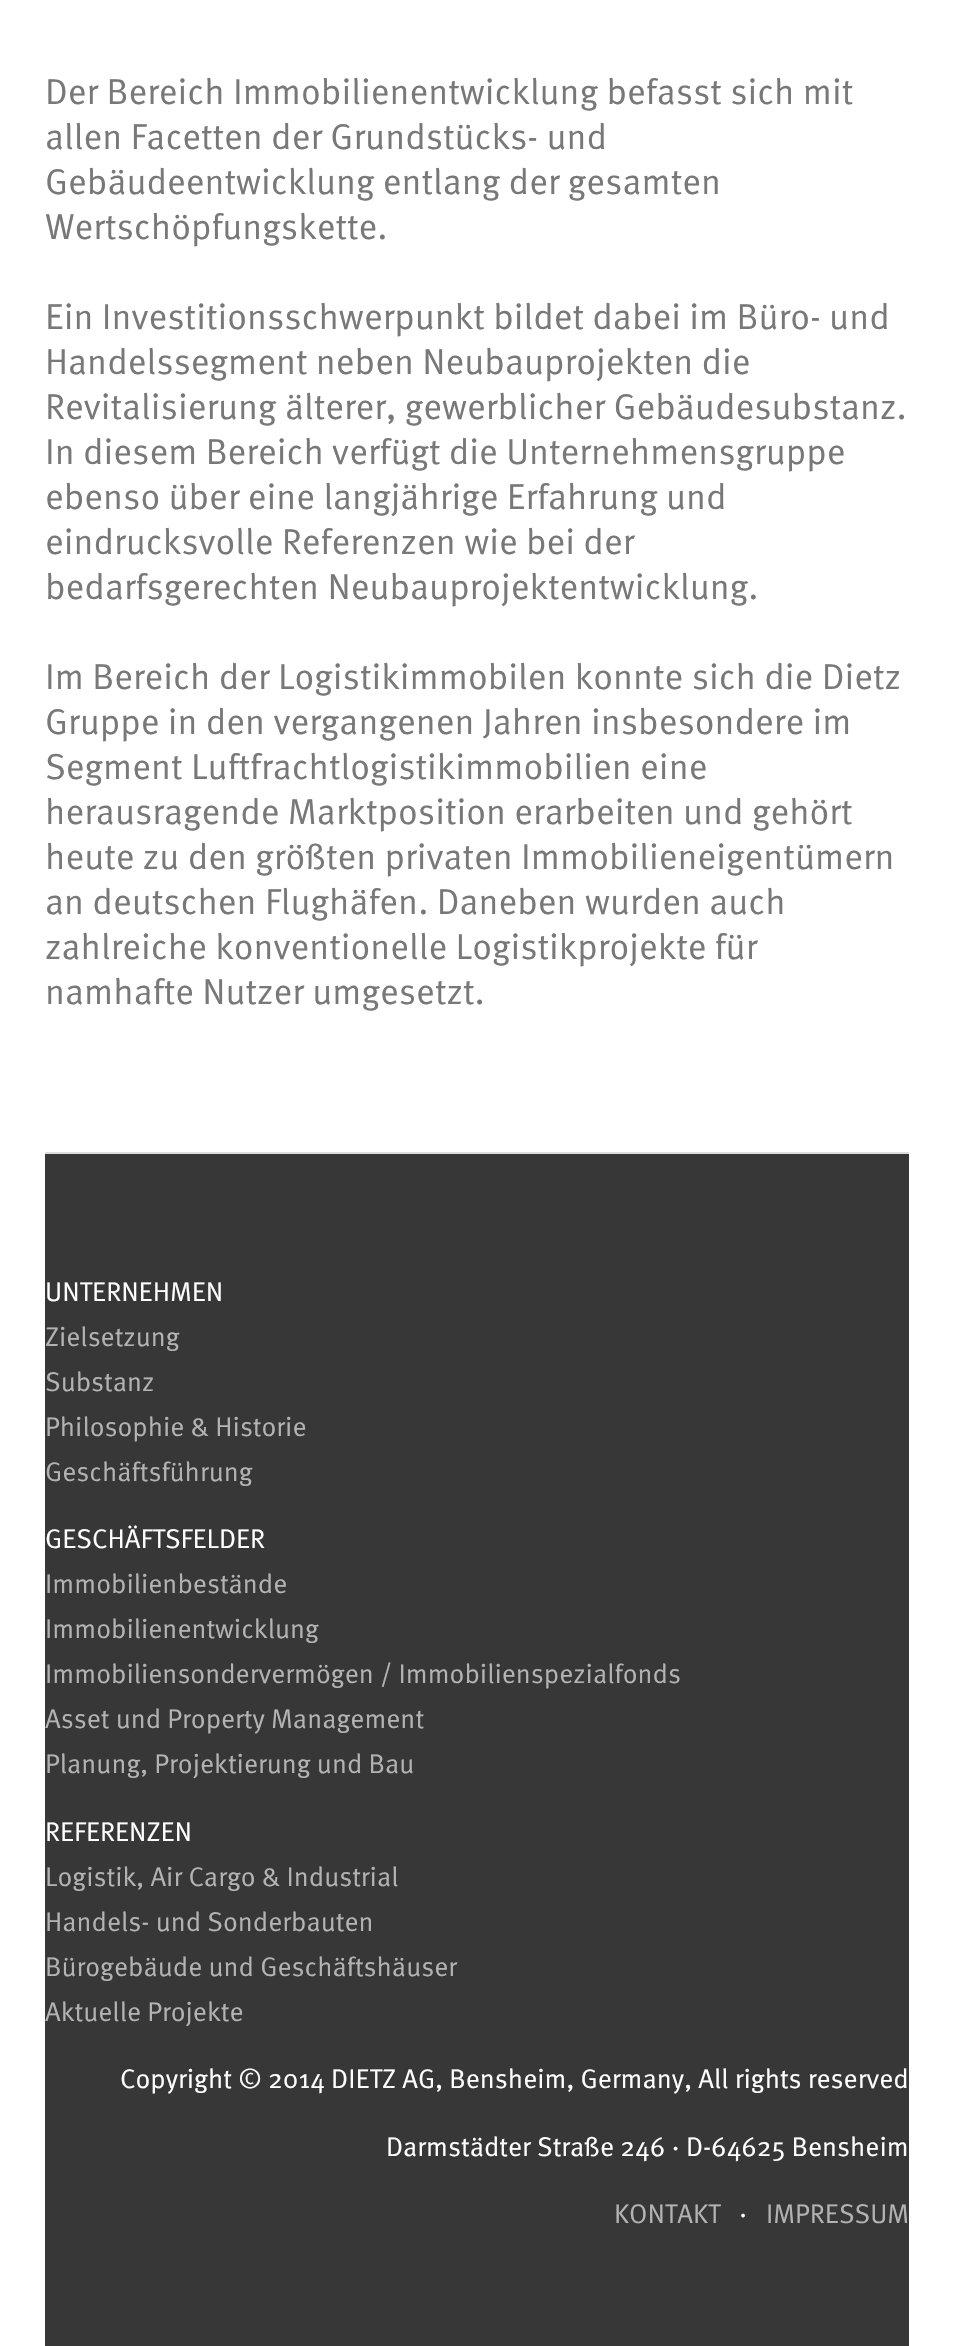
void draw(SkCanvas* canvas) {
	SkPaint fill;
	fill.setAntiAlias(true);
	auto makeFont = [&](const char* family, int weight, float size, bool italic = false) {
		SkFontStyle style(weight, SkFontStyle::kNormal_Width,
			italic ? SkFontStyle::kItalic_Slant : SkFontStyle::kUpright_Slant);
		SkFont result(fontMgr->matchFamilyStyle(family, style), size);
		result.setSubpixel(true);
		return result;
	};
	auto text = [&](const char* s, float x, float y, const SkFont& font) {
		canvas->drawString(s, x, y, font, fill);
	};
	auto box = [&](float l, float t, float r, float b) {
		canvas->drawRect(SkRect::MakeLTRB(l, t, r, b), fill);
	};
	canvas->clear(0xFFFFFFFF);
	fill.setColor(0xFFDDDDDD);
	box(45, 1152, 909, 1154);
	fill.setColor(0xFF373737);
	box(45, 1154, 909, 2346);
	auto font1 = makeFont("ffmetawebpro", 400, 36);
	fill.setColor(0xFF787878);
	text("Der Bereich Immobilienentwicklung befasst sich mit", 45, 104, font1);
	text("allen Facetten der Grundstücks- und", 45, 149, font1);
	text("Gebäudeentwicklung entlang der gesamten", 45, 194, font1);
	text("Wertschöpfungskette.", 45, 239, font1);
	text("Ein Investitionsschwerpunkt bildet dabei im Büro- und", 45, 329, font1);
	text("Handelssegment neben Neubauprojekten die", 45, 374, font1);
	text("Revitalisierung älterer, gewerblicher Gebäudesubstanz.", 45, 419, font1);
	text("In diesem Bereich verfügt die Unternehmensgruppe", 45, 464, font1);
	text("ebenso über eine langjährige Erfahrung und", 45, 509, font1);
	text("eindrucksvolle Referenzen wie bei der", 45, 554, font1);
	text("bedarfsgerechten Neubauprojektentwicklung.", 45, 599, font1);
	text("Im Bereich der Logistikimmobilen konnte sich die Dietz", 45, 689, font1);
	text("Gruppe in den vergangenen Jahren insbesondere im", 45, 734, font1);
	text("Segment Luftfrachtlogistikimmobilien eine", 45, 779, font1);
	text("herausragende Marktposition erarbeiten und gehört", 45, 824, font1);
	text("heute zu den größten privaten Immobilieneigentümern", 45, 869, font1);
	text("an deutschen Flughäfen. Daneben wurden auch", 45, 914, font1);
	text("zahlreiche konventionelle Logistikprojekte für", 45, 959, font1);
	text("namhafte Nutzer umgesetzt.", 45, 1004, font1);
	auto font2 = makeFont("ffmetawebpro", 400, 27);
	fill.setColor(0xFFFFFFFF);
	text("UNTERNEHMEN", 45, 1301, font2);
	fill.setColor(0xFFB3B3B3);
	text("Zielsetzung", 45, 1346, font2);
	text("Substanz", 45, 1391, font2);
	text("Philosophie & Historie", 45, 1436, font2);
	text("Geschäftsführung", 45, 1481, font2);
	fill.setColor(0xFFFFFFFF);
	text("GESCHÄFTSFELDER", 45, 1548, font2);
	fill.setColor(0xFFB3B3B3);
	text("Immobilienbestände", 45, 1593, font2);
	text("Immobilienentwicklung", 45, 1638, font2);
	text("Immobiliensondervermögen / Immobilienspezialfonds", 45, 1683, font2);
	text("Asset und Property Management", 45, 1728, font2);
	text("Planung, Projektierung und Bau", 45, 1773, font2);
	fill.setColor(0xFFFFFFFF);
	text("REFERENZEN", 45, 1841, font2);
	fill.setColor(0xFFB3B3B3);
	text("Logistik, Air Cargo & Industrial", 45, 1886, font2);
	text("Handels- und Sonderbauten", 45, 1931, font2);
	text("Bürogebäude und Geschäftshäuser", 45, 1976, font2);
	text("Aktuelle Projekte", 45, 2021, font2);
	fill.setColor(0xFFFFFFFF);
	text("Copyright © 2014 DIETZ AG, Bensheim, Germany, All rights reserved", 120, 2088, font2);
	text("Darmstädter Straße 246 · D-64625 Bensheim", 386, 2156, font2);
	fill.setColor(0xFFB3B3B3);
	text("KONTAKT", 614, 2223, font2);
	fill.setColor(0xFFFFFFFF);
	text("·", 739, 2223, font2);
	fill.setColor(0xFFB3B3B3);
	text("IMPRESSUM", 766, 2223, font2);
}
